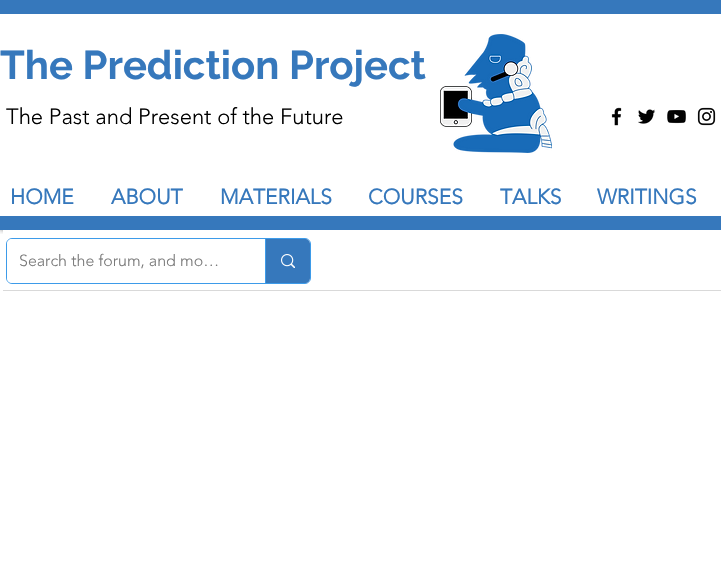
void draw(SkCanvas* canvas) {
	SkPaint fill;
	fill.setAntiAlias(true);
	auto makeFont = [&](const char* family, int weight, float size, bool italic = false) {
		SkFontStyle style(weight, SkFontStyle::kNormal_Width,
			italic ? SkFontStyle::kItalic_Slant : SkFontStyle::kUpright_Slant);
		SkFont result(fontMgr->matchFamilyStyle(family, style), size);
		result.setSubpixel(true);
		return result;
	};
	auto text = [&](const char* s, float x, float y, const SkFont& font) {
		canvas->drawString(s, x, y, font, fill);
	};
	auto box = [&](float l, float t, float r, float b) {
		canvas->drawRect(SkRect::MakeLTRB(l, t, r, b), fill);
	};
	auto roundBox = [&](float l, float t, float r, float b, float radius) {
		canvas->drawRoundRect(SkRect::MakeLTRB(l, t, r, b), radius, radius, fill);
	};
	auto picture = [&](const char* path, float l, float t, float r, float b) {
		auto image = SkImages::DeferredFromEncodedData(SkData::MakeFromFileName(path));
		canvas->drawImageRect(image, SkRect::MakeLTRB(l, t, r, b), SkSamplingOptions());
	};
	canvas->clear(0xFFFFFFFF);
	canvas->save();
	canvas->clipRect(SkRect::MakeLTRB(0, 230, 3, 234));
	fill.setColor(0x80000000);
	fill.setMaskFilter(SkMaskFilter::MakeBlur(kNormal_SkBlurStyle, 2.5f));
	canvas->drawRect(SkRect::MakeLTRB(0, 0, 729, 230), fill);
	fill.setMaskFilter(nullptr);
	canvas->restore();
	fill.setColor(0xFF3678BC);
	box(0, 0, 721, 14);
	picture("image0.png", 440, 34, 552, 153);
	picture("image1.png", 611, 107, 622, 126);
	picture("image2.png", 638, 109, 656, 124);
	picture("image3.png", 667, 110, 686, 124);
	picture("image4.png", 697, 107, 716, 126);
	box(0, 216, 721, 230);
	fill.setColor(0xFFFFFFFF);
	box(3, 230, 721, 235);
	fill.setColor(0xFFD9D9D9);
	box(3, 290, 721, 291);
	fill.setStyle(SkPaint::kStroke_Style);
	fill.setStrokeWidth(1);
	fill.setColor(0xFF3D9BE9);
	canvas->drawRoundRect(SkRect::MakeLTRB(6.5f, 238.5f, 310.5f, 283.5f), 5.5f, 5.5f, fill);
	fill.setStyle(SkPaint::kFill_Style);
	fill.setColor(0xFFFFFFFF);
	roundBox(7, 239, 310, 283, 5);
	fill.setColor(0xFF3678BC);
	canvas->drawPath(SkPathBuilder().moveTo(265, 239).lineTo(305, 239).cubicTo(308, 239, 310, 241, 310, 244).lineTo(310, 278).cubicTo(310, 281, 308, 283, 305, 283).lineTo(265, 283).close().detach(), fill);
	fill.setColor(0xFF3D9BE9);
	box(265, 239, 266, 283);
	picture("image5.png", 281, 254, 295, 268);
	auto font1 = makeFont("Raleway", 700, 40);
	fill.setColor(0xFF3678BC);
	text("The Prediction Project", 0, 79, font1);
	auto font2 = makeFont("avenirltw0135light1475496", 300, 22);
	fill.setColor(0xFF000000);
	text("The Past and Present of the Future", 6, 124, font2);
	auto font3 = makeFont("avenirltw0135light1475496", 700, 21);
	fill.setColor(0xFF3678BC);
	text("HOME", 10, 204, font3);
	text("ABOUT", 111, 204, font3);
	text("MATERIALS", 220, 204, font3);
	text("COURSES", 368, 204, font3);
	text("TALKS", 500, 204, font3);
	text("WRITINGS", 597, 204, font3);
	auto font4 = makeFont("avenirltw0135light1475496", 300, 16);
	fill.setColor(0xFF787878);
	text("Search the forum, and mo…", 19, 266, font4);
}
